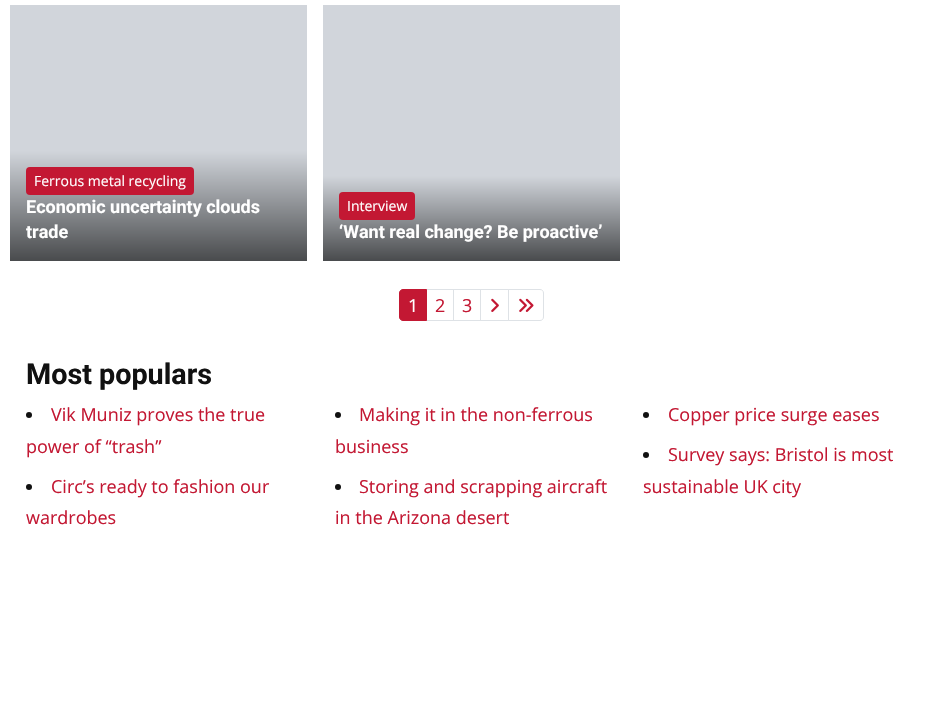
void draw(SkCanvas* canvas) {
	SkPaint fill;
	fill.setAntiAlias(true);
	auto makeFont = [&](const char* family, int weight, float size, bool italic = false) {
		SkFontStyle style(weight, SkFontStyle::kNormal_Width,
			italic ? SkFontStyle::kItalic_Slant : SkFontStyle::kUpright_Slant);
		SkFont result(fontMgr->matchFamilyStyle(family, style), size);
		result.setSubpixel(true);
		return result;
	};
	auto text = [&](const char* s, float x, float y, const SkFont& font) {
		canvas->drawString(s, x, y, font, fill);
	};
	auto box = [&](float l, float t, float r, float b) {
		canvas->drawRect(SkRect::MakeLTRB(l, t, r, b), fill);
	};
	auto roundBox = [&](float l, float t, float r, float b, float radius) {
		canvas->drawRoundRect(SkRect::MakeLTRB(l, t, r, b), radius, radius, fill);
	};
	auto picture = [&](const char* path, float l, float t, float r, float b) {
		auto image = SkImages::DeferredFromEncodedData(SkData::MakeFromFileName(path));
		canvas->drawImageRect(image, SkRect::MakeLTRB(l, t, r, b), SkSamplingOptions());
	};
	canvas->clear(0xFFFFFFFF);
	fill.setColor(0xFFD1D5DB);
	box(10, 5, 307, 151);
	{
		const SkColor colors[] = {0xFFD1D5DB, 0xFF494B4D};
		const float stops[] = {0, 1};
		const SkPoint ends[] = {{159, 151}, {159, 261}};
		fill.setShader(SkGradientShader::MakeLinear(ends, colors, stops, 2, SkTileMode::kClamp));
		fill.setAlpha(255);
	}
	box(10, 151, 307, 261);
	fill.setShader(nullptr);
	fill.setColor(0xFFC31833);
	roundBox(26, 167, 194, 195, 4);
	fill.setColor(0xFFD1D5DB);
	box(323, 5, 620, 176);
	{
		const SkColor colors[] = {0xFFD1D5DB, 0xFF494B4D};
		const float stops[] = {0, 1};
		const SkPoint ends[] = {{472, 176}, {472, 261}};
		fill.setShader(SkGradientShader::MakeLinear(ends, colors, stops, 2, SkTileMode::kClamp));
		fill.setAlpha(255);
	}
	box(323, 176, 620, 261);
	fill.setShader(nullptr);
	fill.setColor(0xFFC31833);
	roundBox(339, 192, 415, 220, 4);
	fill.setStyle(SkPaint::kStroke_Style);
	fill.setStrokeWidth(1);
	fill.setColor(0xFFDEE2E6);
	canvas->drawRect(SkRect::MakeLTRB(426.5f, 289.5f, 453.5f, 320.5f), fill);
	fill.setStyle(SkPaint::kFill_Style);
	fill.setColor(0xFFC31833);
	canvas->drawPath(SkPathBuilder().moveTo(403, 289.5f).lineTo(426.5f, 289.5f).lineTo(426.5f, 320.5f).lineTo(403, 320.5f).cubicTo(401, 320.5f, 399.5f, 319, 399.5f, 317).lineTo(399.5f, 293).cubicTo(399.5f, 291, 401, 289.5f, 403, 289.5f).close().detach(), fill);
	fill.setStyle(SkPaint::kStroke_Style);
	canvas->drawPath(SkPathBuilder().moveTo(403, 289.5f).lineTo(426.5f, 289.5f).lineTo(426.5f, 320.5f).lineTo(403, 320.5f).cubicTo(401, 320.5f, 399.5f, 319, 399.5f, 317).lineTo(399.5f, 293).cubicTo(399.5f, 291, 401, 289.5f, 403, 289.5f).close().detach(), fill);
	fill.setColor(0xFFDEE2E6);
	canvas->drawRect(SkRect::MakeLTRB(453.5f, 289.5f, 480.5f, 320.5f), fill);
	canvas->drawRect(SkRect::MakeLTRB(480.5f, 289.5f, 508.5f, 320.5f), fill);
	picture("image0.png", 491, 298, 499, 312);
	fill.setStyle(SkPaint::kFill_Style);
	fill.setColor(0xFFFFFFFF);
	canvas->drawPath(SkPathBuilder().moveTo(508.5f, 289.5f).lineTo(540, 289.5f).cubicTo(542, 289.5f, 543.5f, 291, 543.5f, 293).lineTo(543.5f, 317).cubicTo(543.5f, 319, 542, 320.5f, 540, 320.5f).lineTo(508.5f, 320.5f).close().detach(), fill);
	fill.setStyle(SkPaint::kStroke_Style);
	fill.setColor(0xFFDEE2E6);
	canvas->drawPath(SkPathBuilder().moveTo(508.5f, 289.5f).lineTo(540, 289.5f).cubicTo(542, 289.5f, 543.5f, 291, 543.5f, 293).lineTo(543.5f, 317).cubicTo(543.5f, 319, 542, 320.5f, 540, 320.5f).lineTo(508.5f, 320.5f).close().detach(), fill);
	picture("image1.png", 519, 298, 534, 312);
	fill.setStyle(SkPaint::kFill_Style);
	fill.setColor(0xFF111111);
	canvas->drawCircle(29, 415, 3, fill);
	canvas->drawCircle(29, 487, 3, fill);
	canvas->drawCircle(338, 415, 3, fill);
	canvas->drawCircle(338, 487, 3, fill);
	canvas->drawCircle(646, 415, 3, fill);
	canvas->drawCircle(646, 455, 3, fill);
	auto font1 = makeFont("Open Sans", 400, 14);
	fill.setColor(0xFFFFFFFF);
	text("Ferrous metal recycling", 34, 186, font1);
	auto font2 = makeFont("Roboto", 700, 18);
	text("Economic uncertainty clouds", 26, 213, font2);
	text("trade", 26, 238, font2);
	text("Interview", 347, 211, font1);
	text("‘Want real change? Be proactive’", 339, 238, font2);
	auto font3 = makeFont("Open Sans", 400, 18);
	text("1", 408, 312, font3);
	fill.setColor(0xFFC31833);
	text("2", 435, 312, font3);
	text("3", 462, 312, font3);
	auto font4 = makeFont("Roboto", 700, 28.75f);
	fill.setColor(0xFF111111);
	text("Most populars", 26, 384, font4);
	fill.setColor(0xFFC31833);
	text("Vik Muniz proves the true", 51, 421, font3);
	text("power of “trash”", 26, 453, font3);
	text("Circ’s ready to fashion our", 51, 493, font3);
	text("wardrobes", 26, 524, font3);
	text("Making it in the non-ferrous", 359, 421, font3);
	text("business", 335, 453, font3);
	text("Storing and scrapping aircraft", 359, 493, font3);
	text("in the Arizona desert", 335, 524, font3);
	text("Copper price surge eases", 668, 421, font3);
	text("Survey says: Bristol is most", 668, 461, font3);
	text("sustainable UK city", 643, 493, font3);
}
